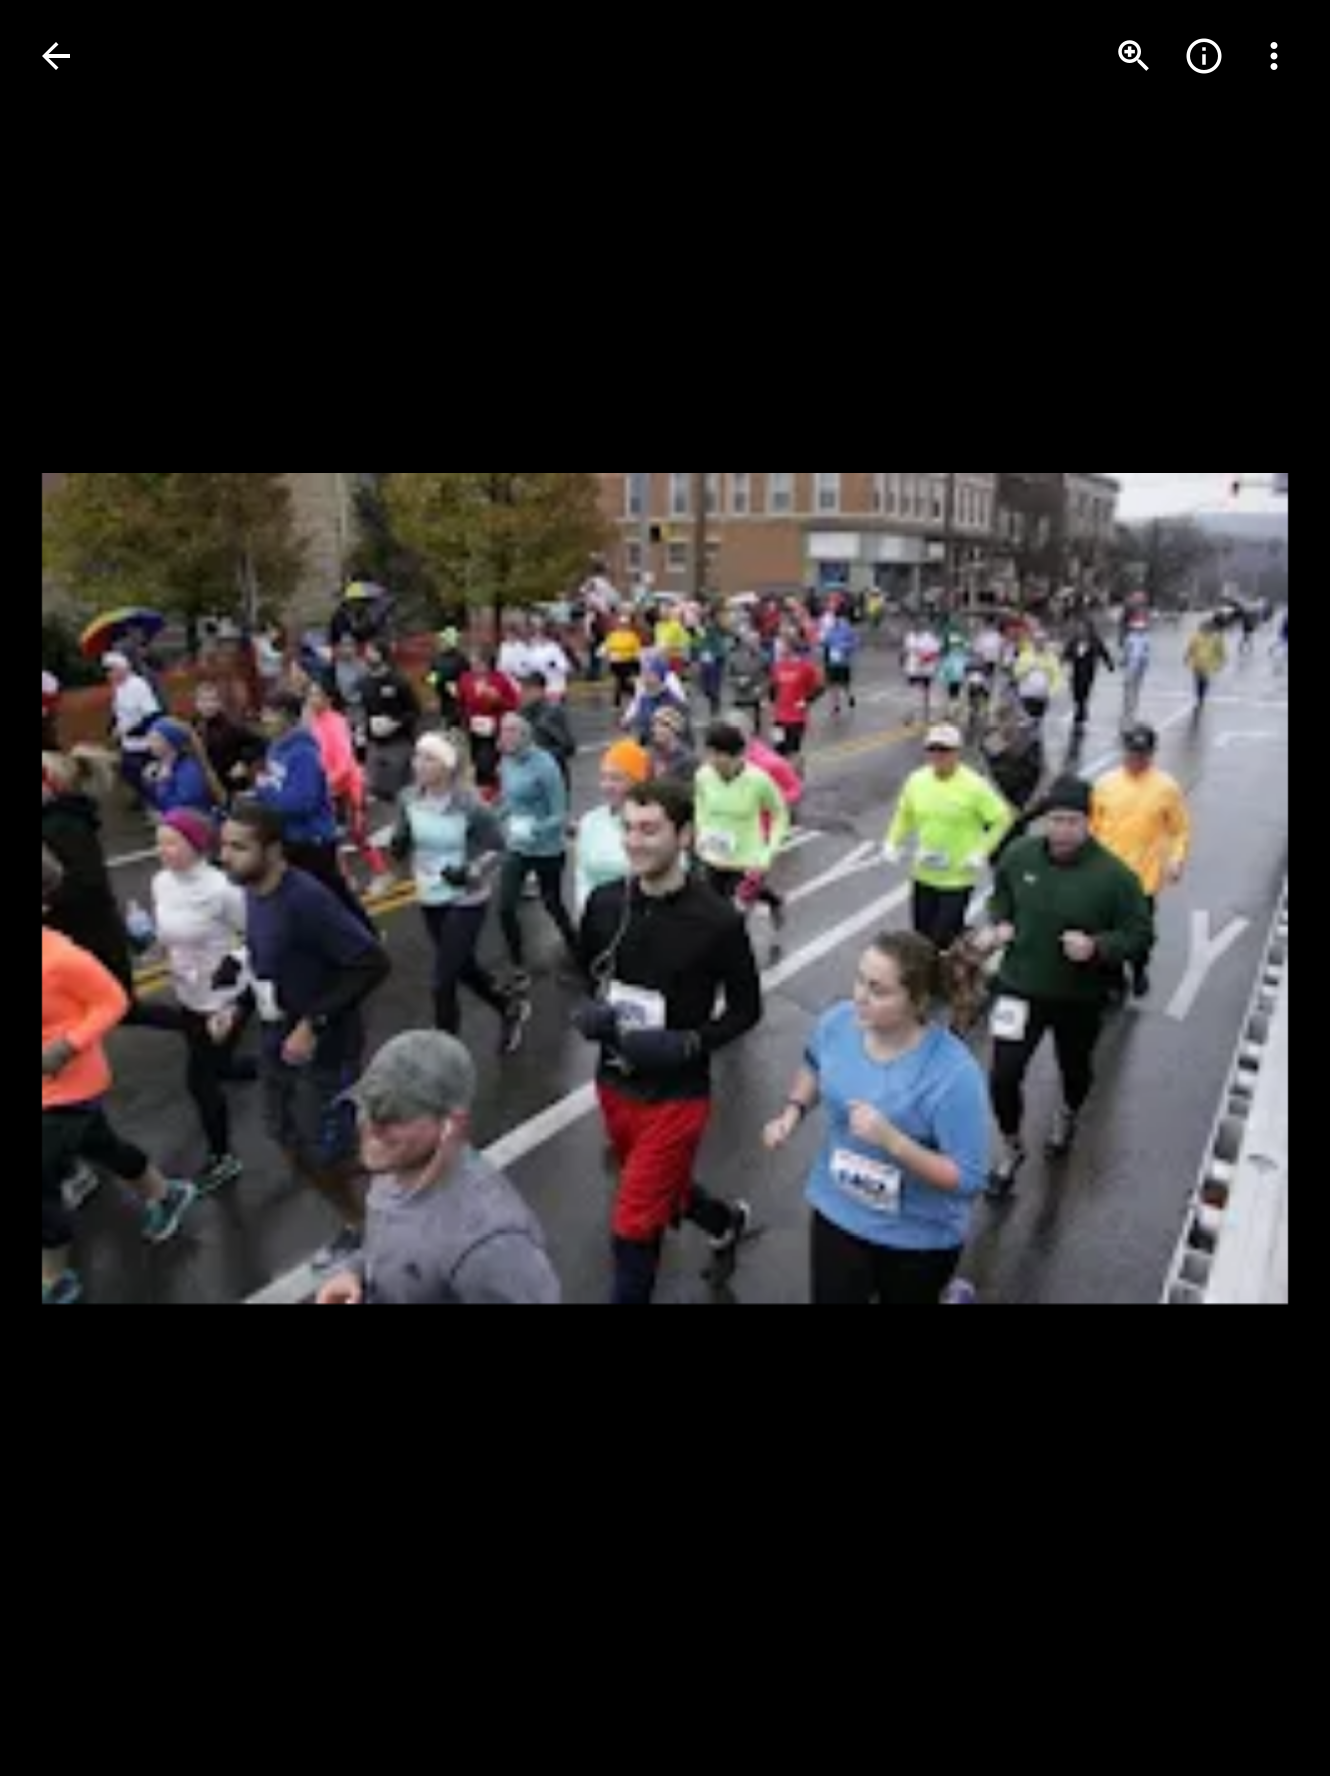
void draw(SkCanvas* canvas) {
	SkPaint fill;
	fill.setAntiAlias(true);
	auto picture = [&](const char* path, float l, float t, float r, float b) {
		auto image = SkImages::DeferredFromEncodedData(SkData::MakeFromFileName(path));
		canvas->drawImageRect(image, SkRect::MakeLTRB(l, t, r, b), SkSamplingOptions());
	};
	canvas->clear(0xFF000000);
	fill.setColor(0xFFFFFFFF);
	canvas->drawPath(SkPathBuilder().moveTo(70, 54).lineTo(48.5f, 54).lineTo(58.5f, 44.5f).lineTo(56, 42).lineTo(42, 56).lineTo(56, 70).lineTo(58.5f, 67.5f).lineTo(48.5f, 58).lineTo(70, 58).close().detach(), fill);
	picture("image0.png", 1118, 40, 1149, 71);
	picture("image1.png", 1186, 38, 1222, 74);
	picture("image2.png", 1270, 42, 1278, 70);
	picture("image3.png", 41, 473, 1289, 1305);
}
